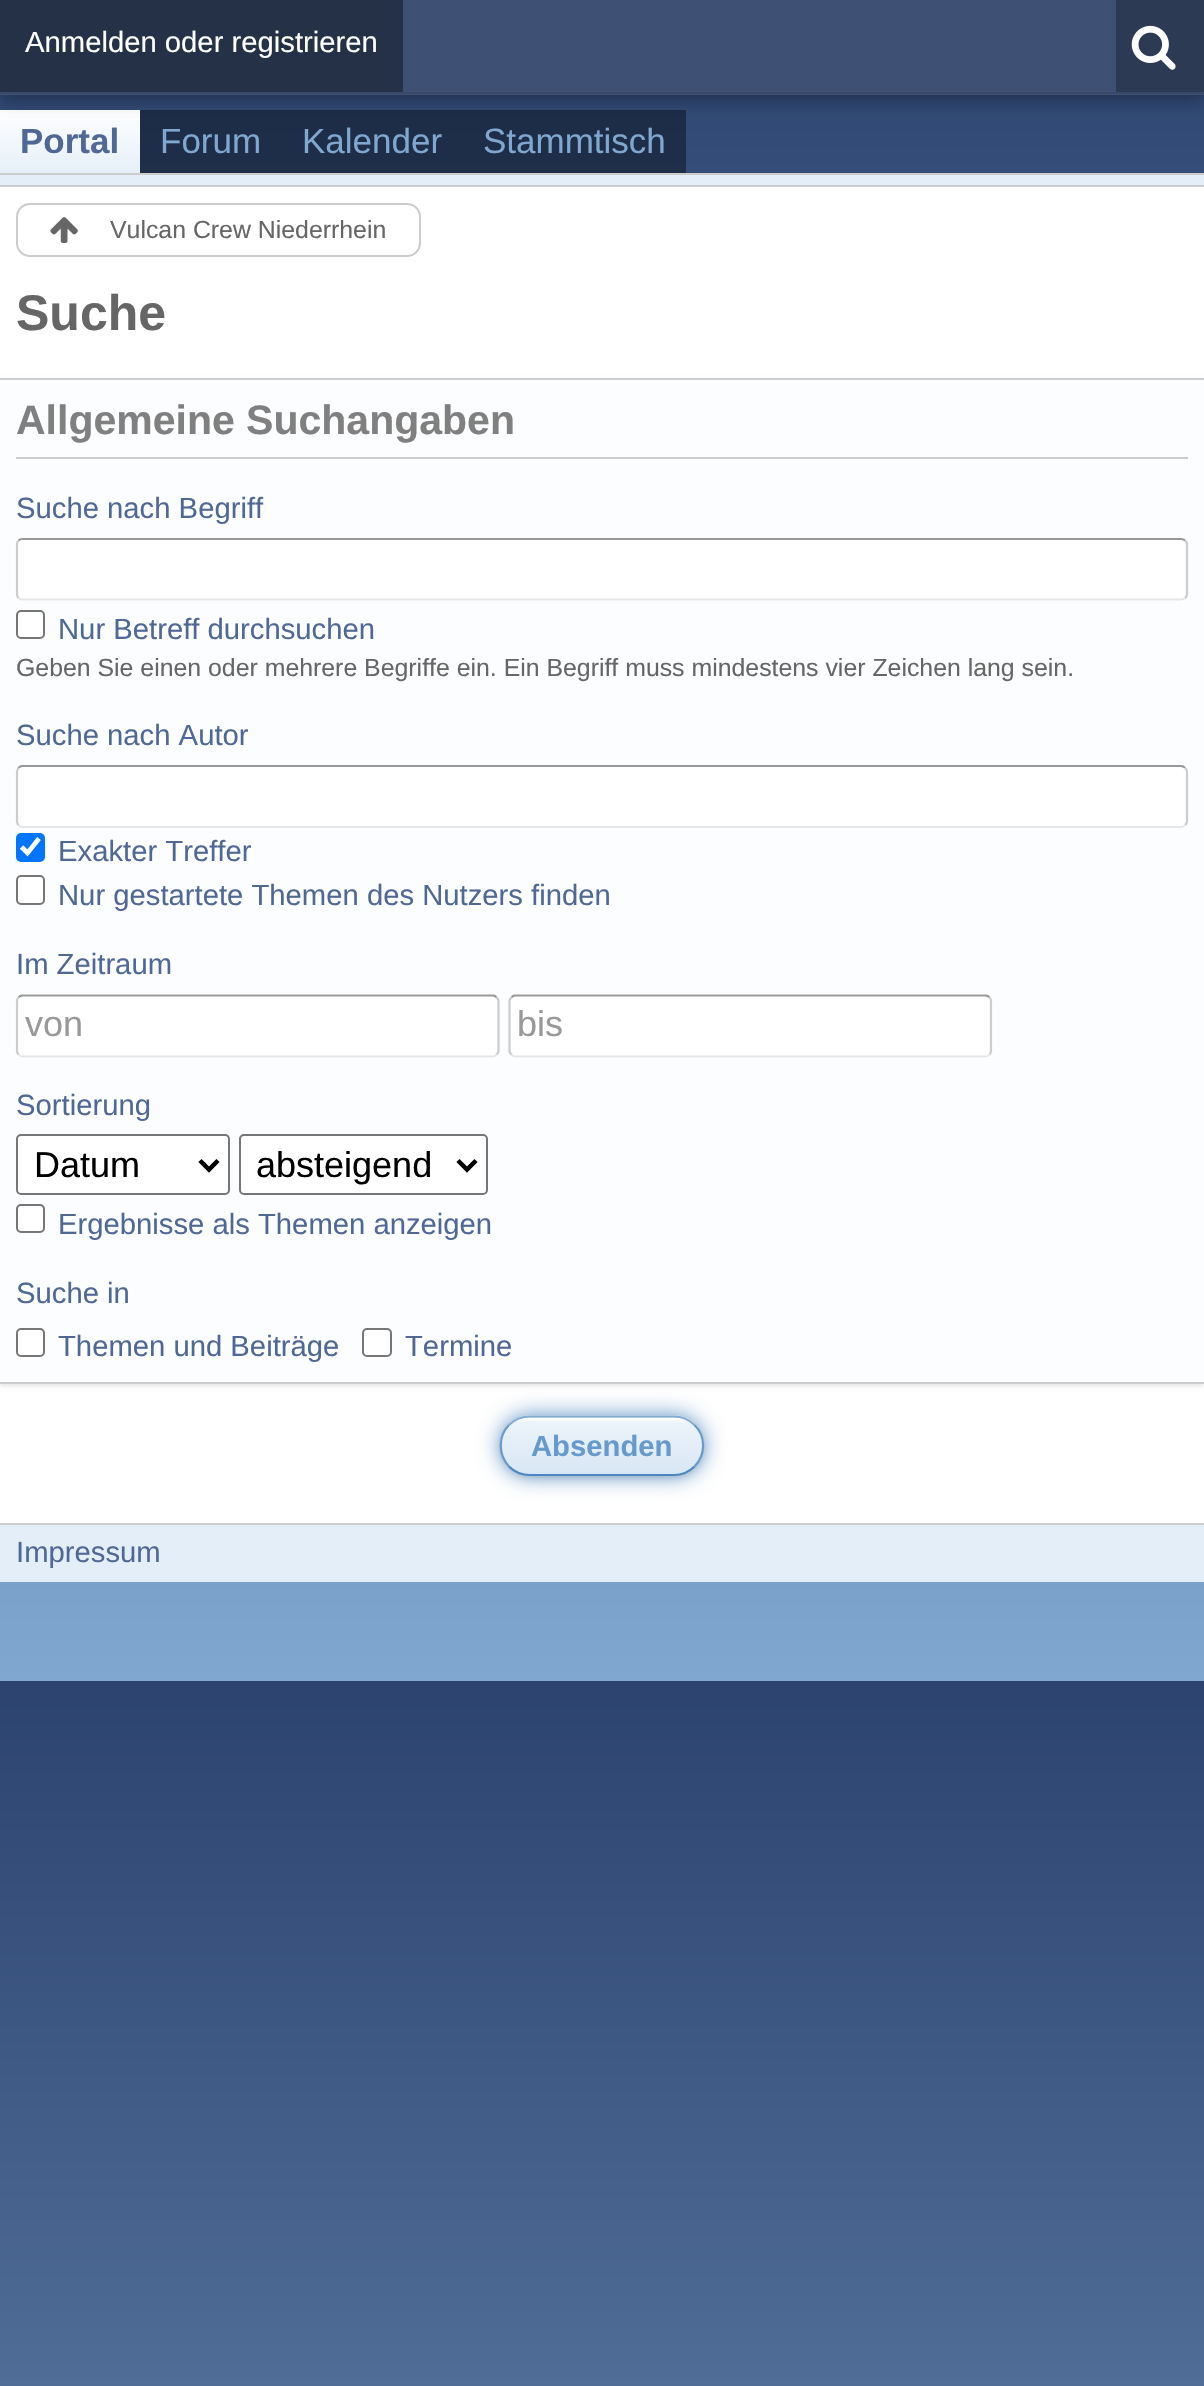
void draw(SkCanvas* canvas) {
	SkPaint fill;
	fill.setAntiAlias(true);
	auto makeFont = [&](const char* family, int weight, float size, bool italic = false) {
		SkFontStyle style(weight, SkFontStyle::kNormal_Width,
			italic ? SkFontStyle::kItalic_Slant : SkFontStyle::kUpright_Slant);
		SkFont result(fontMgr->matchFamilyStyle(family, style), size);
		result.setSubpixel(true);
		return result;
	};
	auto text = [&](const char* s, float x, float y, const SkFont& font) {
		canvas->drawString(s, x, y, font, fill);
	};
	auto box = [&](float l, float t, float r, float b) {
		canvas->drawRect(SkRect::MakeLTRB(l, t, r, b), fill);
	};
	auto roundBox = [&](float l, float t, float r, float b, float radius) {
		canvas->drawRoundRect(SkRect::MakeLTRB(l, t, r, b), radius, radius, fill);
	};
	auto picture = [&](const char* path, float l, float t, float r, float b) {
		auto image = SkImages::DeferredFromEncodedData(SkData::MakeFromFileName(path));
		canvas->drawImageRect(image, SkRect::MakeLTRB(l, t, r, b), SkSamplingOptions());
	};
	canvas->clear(0xFFFFFFFF);
	{
		const SkColor colors[] = {0xFF2C436F, 0xFF7FA7CF};
		const float stops[] = {0, 1};
		const SkPoint ends[] = {{0, 0}, {0, 1681}};
		fill.setShader(SkGradientShader::MakeLinear(ends, colors, stops, 2, SkTileMode::kClamp));
		fill.setAlpha(255);
	}
	box(0, 95, 1204, 1681);
	{
		const SkColor colors[] = {0xFF1A2843, 0xFF4C647C};
		const float stops[] = {0, 1};
		const SkPoint ends[] = {{0, 0}, {0, 1681}};
		fill.setShader(SkGradientShader::MakeLinear(ends, colors, stops, 2, SkTileMode::kClamp));
		fill.setAlpha(255);
	}
	box(140, 110, 686, 173);
	{
		const SkColor colors[] = {0xFF2C436F, 0xFF7FA7CF};
		const float stops[] = {0, 1};
		const SkPoint ends[] = {{0, 1681}, {0, 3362}};
		fill.setShader(SkGradientShader::MakeLinear(ends, colors, stops, 2, SkTileMode::kClamp));
		fill.setAlpha(255);
	}
	box(0, 1681, 1204, 2386);
	{
		const SkColor colors[] = {0xFFFFFFFF, 0xFFE4EEF8};
		const float stops[] = {0, 1};
		const SkPoint ends[] = {{70, 110}, {70, 176}};
		fill.setShader(SkGradientShader::MakeLinear(ends, colors, stops, 2, SkTileMode::kClamp));
		fill.setAlpha(255);
	}
	box(0, 110, 140, 173);
	fill.setShader(nullptr);
	fill.setColor(0x4D000000);
	fill.setMaskFilter(SkMaskFilter::MakeBlur(kNormal_SkBlurStyle, 8));
	canvas->drawRect(SkRect::MakeLTRB(0, 7, 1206, 101), fill);
	fill.setMaskFilter(nullptr);
	fill.setColor(0xFF3E5175);
	box(0, 0, 1204, 95);
	fill.setColor(0xFF384969);
	box(0, 92, 1204, 94);
	fill.setColor(0xFF253146);
	box(0, 0, 403, 92);
	fill.setColor(0xFF2D3A53);
	box(1116, 0, 1204, 92);
	picture("image0.png", 1131, 25, 1176, 70);
	fill.setColor(0xFFE4EEF8);
	box(0, 175, 1204, 185);
	fill.setColor(0xFFCCCCCC);
	box(0, 173, 1204, 175);
	box(0, 185, 1204, 187);
	fill.setColor(0xFFFFFFFF);
	box(0, 187, 1204, 1523);
	fill.setStyle(SkPaint::kStroke_Style);
	fill.setStrokeWidth(2);
	fill.setColor(0xFFCCCCCC);
	canvas->drawRoundRect(SkRect::MakeLTRB(17, 204, 420, 256), 13, 13, fill);
	picture("image1.png", 50, 217, 78, 243);
	fill.setStyle(SkPaint::kFill_Style);
	fill.setColor(0x1A000000);
	fill.setMaskFilter(SkMaskFilter::MakeBlur(kNormal_SkBlurStyle, 2));
	canvas->drawRect(SkRect::MakeLTRB(0, 380, 1204, 1386), fill);
	fill.setMaskFilter(nullptr);
	fill.setColor(0xFFFCFDFE);
	box(0, 380, 1204, 1382);
	fill.setColor(0xFFCCCCCC);
	box(0, 378, 1204, 380);
	box(0, 1382, 1204, 1384);
	box(16, 457, 1188, 459);
	fill.setColor(0xFFFFFFFF);
	roundBox(16, 538, 1188, 601, 7);
	fill.setStyle(SkPaint::kStroke_Style);
	fill.setStrokeWidth(2.2f);
	fill.setColor(0xFF999999);
	canvas->drawPath(SkPathBuilder().moveTo(18.5f, 540.5f).cubicTo(19.5f, 539.5f, 21, 539, 22.5f, 539).lineTo(1181, 539).cubicTo(1182.5f, 539, 1184, 539.5f, 1185, 540.5f).detach(), fill);
	fill.setColor(0xFFCCCCCC);
	canvas->drawPath(SkPathBuilder().moveTo(1185, 540.5f).cubicTo(1186.5f, 541.5f, 1187, 543, 1187, 544.5f).lineTo(1187, 594).cubicTo(1187, 595.5f, 1186.5f, 597, 1185, 598).detach(), fill);
	fill.setColor(0xFFE6E6E6);
	canvas->drawPath(SkPathBuilder().moveTo(1185, 598).cubicTo(1184, 599, 1182.5f, 599.5f, 1181, 599.5f).lineTo(22.5f, 599.5f).cubicTo(21, 599.5f, 19.5f, 599, 18.5f, 598).detach(), fill);
	fill.setColor(0xFFCCCCCC);
	canvas->drawPath(SkPathBuilder().moveTo(18.5f, 598).cubicTo(17.5f, 597, 17, 595.5f, 17, 594).lineTo(17, 544.5f).cubicTo(17, 543, 17.5f, 541.5f, 18.5f, 540.5f).detach(), fill);
	fill.setStyle(SkPaint::kFill_Style);
	fill.setColor(0xFFFFFFFF);
	canvas->drawRoundRect(SkRect::MakeLTRB(17, 611, 44, 638), 4, 4, fill);
	fill.setStyle(SkPaint::kStroke_Style);
	fill.setStrokeWidth(2);
	fill.setColor(0xFF767676);
	canvas->drawRoundRect(SkRect::MakeLTRB(17, 611, 44, 638), 4, 4, fill);
	fill.setStyle(SkPaint::kFill_Style);
	fill.setColor(0xFFFFFFFF);
	roundBox(16, 765, 1188, 828, 7);
	fill.setStyle(SkPaint::kStroke_Style);
	fill.setStrokeWidth(2.2f);
	fill.setColor(0xFF999999);
	canvas->drawPath(SkPathBuilder().moveTo(18.5f, 768).cubicTo(19.5f, 766.5f, 21, 766, 22.5f, 766).lineTo(1181, 766).cubicTo(1182.5f, 766, 1184, 766.5f, 1185, 768).detach(), fill);
	fill.setColor(0xFFCCCCCC);
	canvas->drawPath(SkPathBuilder().moveTo(1185, 768).cubicTo(1186.5f, 769, 1187, 770.5f, 1187, 772).lineTo(1187, 821).cubicTo(1187, 822.5f, 1186.5f, 824, 1185, 825).detach(), fill);
	fill.setColor(0xFFE6E6E6);
	canvas->drawPath(SkPathBuilder().moveTo(1185, 825).cubicTo(1184, 826.5f, 1182.5f, 827, 1181, 827).lineTo(22.5f, 827).cubicTo(21, 827, 19.5f, 826.5f, 18.5f, 825).detach(), fill);
	fill.setColor(0xFFCCCCCC);
	canvas->drawPath(SkPathBuilder().moveTo(18.5f, 825).cubicTo(17.5f, 824, 17, 822.5f, 17, 821).lineTo(17, 772).cubicTo(17, 770.5f, 17.5f, 769, 18.5f, 768).detach(), fill);
	fill.setStyle(SkPaint::kFill_Style);
	fill.setColor(0xFF0075FF);
	roundBox(16, 833, 45, 862, 5);
	fill.setStyle(SkPaint::kStroke_Style);
	fill.setStrokeWidth(4.7f);
	fill.setColor(0xFFFFFFFF);
	canvas->drawPath(SkPathBuilder().moveTo(21.5f, 847).lineTo(27.5f, 853).lineTo(39, 838.5f).detach(), fill);
	fill.setStyle(SkPaint::kFill_Style);
	canvas->drawRoundRect(SkRect::MakeLTRB(17, 876, 44, 904), 4, 4, fill);
	fill.setStyle(SkPaint::kStroke_Style);
	fill.setStrokeWidth(2);
	fill.setColor(0xFF767676);
	canvas->drawRoundRect(SkRect::MakeLTRB(17, 876, 44, 904), 4, 4, fill);
	fill.setStyle(SkPaint::kFill_Style);
	fill.setColor(0xFFFFFFFF);
	roundBox(16, 995, 500, 1058, 7);
	fill.setStyle(SkPaint::kStroke_Style);
	fill.setStrokeWidth(2.2f);
	fill.setColor(0xFF999999);
	canvas->drawPath(SkPathBuilder().moveTo(18.5f, 997.5f).cubicTo(19.5f, 996, 21, 995.5f, 22.5f, 995.5f).lineTo(493, 995.5f).cubicTo(494, 995.5f, 495.5f, 996, 496.5f, 997.5f).detach(), fill);
	fill.setColor(0xFFCCCCCC);
	canvas->drawPath(SkPathBuilder().moveTo(496.5f, 997.5f).cubicTo(498, 998.5f, 498.5f, 1000, 498.5f, 1001).lineTo(498.5f, 1051).cubicTo(498.5f, 1052, 498, 1053.5f, 496.5f, 1054.5f).detach(), fill);
	fill.setColor(0xFFE6E6E6);
	canvas->drawPath(SkPathBuilder().moveTo(496.5f, 1054.5f).cubicTo(495.5f, 1056, 494, 1056.5f, 493, 1056.5f).lineTo(22.5f, 1056.5f).cubicTo(21, 1056.5f, 19.5f, 1056, 18.5f, 1054.5f).detach(), fill);
	fill.setColor(0xFFCCCCCC);
	canvas->drawPath(SkPathBuilder().moveTo(18.5f, 1054.5f).cubicTo(17.5f, 1053.5f, 17, 1052, 17, 1051).lineTo(17, 1001).cubicTo(17, 1000, 17.5f, 998.5f, 18.5f, 997.5f).detach(), fill);
	fill.setStyle(SkPaint::kFill_Style);
	fill.setColor(0xFFFFFFFF);
	roundBox(509, 995, 992, 1058, 7);
	fill.setStyle(SkPaint::kStroke_Style);
	fill.setColor(0xFF999999);
	canvas->drawPath(SkPathBuilder().moveTo(511.5f, 997.5f).cubicTo(512.5f, 996, 514, 995.5f, 515, 995.5f).lineTo(985.5f, 995.5f).cubicTo(987, 995.5f, 988.5f, 996, 989.5f, 997.5f).detach(), fill);
	fill.setColor(0xFFCCCCCC);
	canvas->drawPath(SkPathBuilder().moveTo(989.5f, 997.5f).cubicTo(990.5f, 998.5f, 991, 1000, 991, 1001).lineTo(991, 1051).cubicTo(991, 1052, 990.5f, 1053.5f, 989.5f, 1054.5f).detach(), fill);
	fill.setColor(0xFFE6E6E6);
	canvas->drawPath(SkPathBuilder().moveTo(989.5f, 1054.5f).cubicTo(988.5f, 1056, 987, 1056.5f, 985.5f, 1056.5f).lineTo(515, 1056.5f).cubicTo(514, 1056.5f, 512.5f, 1056, 511.5f, 1054.5f).detach(), fill);
	fill.setColor(0xFFCCCCCC);
	canvas->drawPath(SkPathBuilder().moveTo(511.5f, 1054.5f).cubicTo(510, 1053.5f, 509.5f, 1052, 509.5f, 1051).lineTo(509.5f, 1001).cubicTo(509.5f, 1000, 510, 998.5f, 511.5f, 997.5f).detach(), fill);
	fill.setStyle(SkPaint::kFill_Style);
	fill.setColor(0xFFFFFFFF);
	canvas->drawRoundRect(SkRect::MakeLTRB(17, 1135, 229, 1194), 4, 4, fill);
	fill.setStyle(SkPaint::kStroke_Style);
	fill.setStrokeWidth(2);
	fill.setColor(0xFF767676);
	canvas->drawRoundRect(SkRect::MakeLTRB(17, 1135, 229, 1194), 4, 4, fill);
	fill.setStrokeWidth(4.5f);
	fill.setColor(0xFF000000);
	canvas->drawPath(SkPathBuilder().moveTo(200, 1160.5f).lineTo(209, 1169.5f).lineTo(218, 1160.5f).detach(), fill);
	fill.setStyle(SkPaint::kFill_Style);
	fill.setColor(0xFFFFFFFF);
	canvas->drawRoundRect(SkRect::MakeLTRB(240, 1135, 487, 1194), 4, 4, fill);
	fill.setStyle(SkPaint::kStroke_Style);
	fill.setStrokeWidth(2);
	fill.setColor(0xFF767676);
	canvas->drawRoundRect(SkRect::MakeLTRB(240, 1135, 487, 1194), 4, 4, fill);
	fill.setStrokeWidth(4.5f);
	fill.setColor(0xFF000000);
	canvas->drawPath(SkPathBuilder().moveTo(458, 1160.5f).lineTo(467, 1169.5f).lineTo(476, 1160.5f).detach(), fill);
	fill.setStyle(SkPaint::kFill_Style);
	fill.setColor(0xFFFFFFFF);
	canvas->drawRoundRect(SkRect::MakeLTRB(17, 1205, 44, 1232), 4, 4, fill);
	fill.setStyle(SkPaint::kStroke_Style);
	fill.setStrokeWidth(2);
	fill.setColor(0xFF767676);
	canvas->drawRoundRect(SkRect::MakeLTRB(17, 1205, 44, 1232), 4, 4, fill);
	fill.setStyle(SkPaint::kFill_Style);
	fill.setColor(0xFFFFFFFF);
	canvas->drawRoundRect(SkRect::MakeLTRB(17, 1329, 44, 1356), 4, 4, fill);
	fill.setStyle(SkPaint::kStroke_Style);
	fill.setColor(0xFF767676);
	canvas->drawRoundRect(SkRect::MakeLTRB(17, 1329, 44, 1356), 4, 4, fill);
	fill.setStyle(SkPaint::kFill_Style);
	fill.setColor(0xFFFFFFFF);
	canvas->drawRoundRect(SkRect::MakeLTRB(363, 1329, 391, 1356), 4, 4, fill);
	fill.setStyle(SkPaint::kStroke_Style);
	fill.setColor(0xFF767676);
	canvas->drawRoundRect(SkRect::MakeLTRB(363, 1329, 391, 1356), 4, 4, fill);
	fill.setStyle(SkPaint::kFill_Style);
	fill.setColor(0xFF6699CC);
	fill.setMaskFilter(SkMaskFilter::MakeBlur(kNormal_SkBlurStyle, 11));
	canvas->drawRoundRect(SkRect::MakeLTRB(500, 1415, 704, 1476), 30.5f, 30.5f, fill);
	fill.setMaskFilter(nullptr);
	fill.setColor(0x1A000000);
	fill.setMaskFilter(SkMaskFilter::MakeBlur(kNormal_SkBlurStyle, 3.5f));
	canvas->drawRoundRect(SkRect::MakeLTRB(500, 1418, 704, 1478), 30, 30, fill);
	fill.setMaskFilter(nullptr);
	canvas->save();
	canvas->clipPath(SkPathBuilder().moveTo(530.5f, 1415).lineTo(673.5f, 1415).cubicTo(690.5f, 1415, 704, 1428.5f, 704, 1445.5f).cubicTo(704, 1462.5f, 690.5f, 1476, 673.5f, 1476).lineTo(530.5f, 1476).cubicTo(513.5f, 1476, 500, 1462.5f, 500, 1445.5f).cubicTo(500, 1428.5f, 513.5f, 1415, 530.5f, 1415).close().detach(), true);
	{
		const SkColor colors[] = {0xFFFFFFFF, 0xFFECF3FA, 0xFFD8E7F5};
		const float stops[] = {0, 0.08f, 1};
		const SkPoint ends[] = {{602, 1361}, {602, 1418}};
		fill.setShader(SkGradientShader::MakeLinear(ends, colors, stops, 3, SkTileMode::kClamp));
		fill.setAlpha(255);
	}
	box(517, 1415, 687, 1418);
	{
		const SkColor colors[] = {0xFFFFFFFF, 0xFFECF3FA, 0xFFD8E7F5};
		const float stops[] = {0, 0.08f, 1};
		const SkPoint ends[] = {{602, 1418}, {602, 1474}};
		fill.setShader(SkGradientShader::MakeLinear(ends, colors, stops, 3, SkTileMode::kClamp));
		fill.setAlpha(255);
	}
	box(500, 1418, 704, 1474);
	canvas->restore();
	fill.setStyle(SkPaint::kStroke_Style);
	fill.setStrokeWidth(2.2f);
	fill.setShader(nullptr);
	fill.setColor(0xFF81ABD5);
	canvas->drawPath(SkPathBuilder().moveTo(509, 1425).cubicTo(514.5f, 1419.5f, 522, 1416.5f, 530, 1416.5f).lineTo(674, 1416.5f).cubicTo(681.5f, 1416.5f, 689, 1419.5f, 694.5f, 1425).detach(), fill);
	fill.setColor(0xFF6699CC);
	canvas->drawPath(SkPathBuilder().moveTo(694.5f, 1425).cubicTo(706, 1436, 706, 1455, 694.5f, 1466.5f).detach(), fill);
	fill.setColor(0xFF4B87C3);
	canvas->drawPath(SkPathBuilder().moveTo(694.5f, 1466.5f).cubicTo(689, 1472, 681.5f, 1475, 674, 1475).lineTo(530, 1475).cubicTo(522, 1475, 514.5f, 1472, 509, 1466.5f).detach(), fill);
	fill.setColor(0xFF6699CC);
	canvas->drawPath(SkPathBuilder().moveTo(509, 1466.5f).cubicTo(498, 1455, 498, 1436, 509, 1425).detach(), fill);
	fill.setStyle(SkPaint::kFill_Style);
	fill.setColor(0xFFE4EEF8);
	box(0, 1525, 1204, 1582);
	fill.setColor(0xFFCCCCCC);
	box(0, 1523, 1204, 1525);
	auto font1 = makeFont("Liberation Sans", 400, 29.25f);
	fill.setColor(0xFFFFFFFF);
	text("Anmelden oder registrieren", 25, 52, font1);
	auto font2 = makeFont("Liberation Sans", 700, 35);
	fill.setColor(0xFF506896);
	text("Portal", 20, 153, font2);
	auto font3 = makeFont("Liberation Sans", 400, 35);
	fill.setColor(0xFF7FA7CF);
	text("Forum", 160, 153, font3);
	text("Kalender", 302, 153, font3);
	text("Stammtisch", 483, 153, font3);
	auto font4 = makeFont("Liberation Sans", 400, 24.85f);
	fill.setColor(0xFF666666);
	text("Vulcan Crew Niederrhein", 110, 238, font4);
	auto font5 = makeFont("Liberation Sans", 700, 50);
	text("Suche", 16, 330, font5);
	auto font6 = makeFont("Liberation Sans", 700, 41);
	fill.setColor(0xFF808080);
	text("Allgemeine Suchangaben", 16, 434, font6);
	fill.setColor(0xFF506896);
	text("Suche nach Begriff", 16, 518, font1);
	text("Nur Betreff durchsuchen", 58, 639, font1);
	fill.setColor(0xFF666666);
	text("Geben Sie einen oder mehrere Begriffe ein. Ein Begriff muss mindestens vier Zeichen lang sein.", 16, 676, font4);
	fill.setColor(0xFF506896);
	text("Suche nach Autor", 16, 745, font1);
	text("Exakter Treffer", 58, 861, font1);
	text("Nur gestartete Themen des Nutzers finden", 58, 905, font1);
	text("Im Zeitraum", 16, 974, font1);
	auto font7 = makeFont("Liberation Sans", 400, 36);
	fill.setColor(0xFF999999);
	text("von", 25, 1036, font7);
	text("bis", 517, 1036, font7);
	fill.setColor(0xFF506896);
	text("Sortierung", 16, 1115, font1);
	fill.setColor(0xFF000000);
	text("Datum", 34, 1177, font7);
	text("absteigend", 256, 1177, font7);
	fill.setColor(0xFF506896);
	text("Ergebnisse als Themen anzeigen", 58, 1234, font1);
	text("Suche in", 16, 1303, font1);
	text("Themen und Beiträge", 58, 1356, font1);
	text("Termine", 405, 1356, font1);
	auto font8 = makeFont("Liberation Sans", 700, 29.25f);
	fill.setColor(0xFF6699CC);
	text("Absenden", 531, 1456, font8);
	fill.setColor(0xFF506896);
	text("Impressum", 16, 1562, font1);
}
